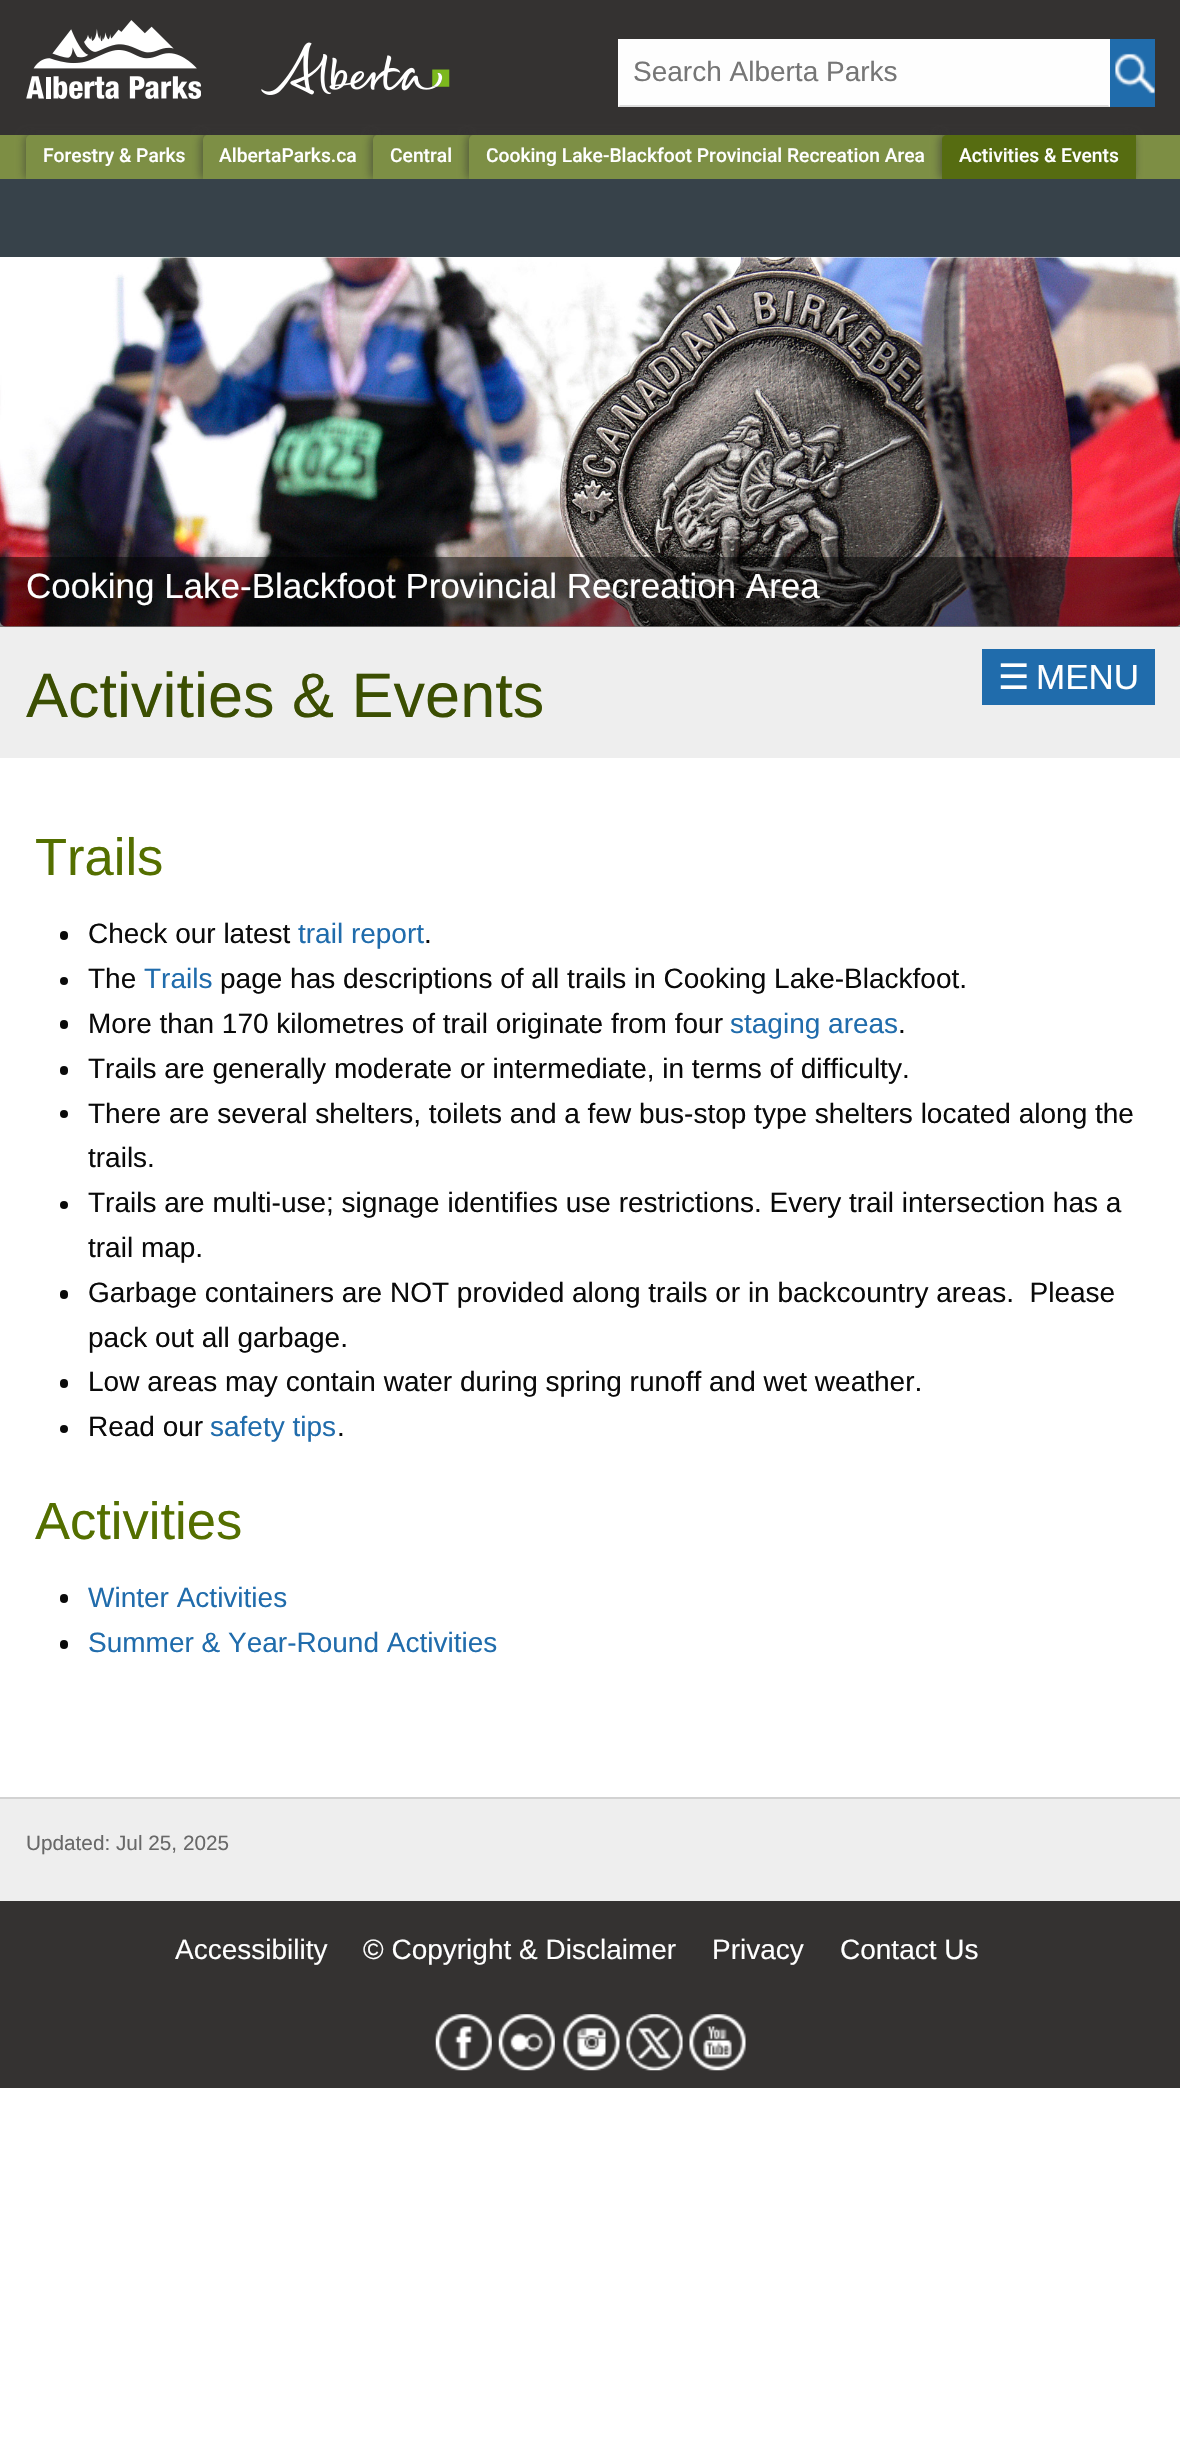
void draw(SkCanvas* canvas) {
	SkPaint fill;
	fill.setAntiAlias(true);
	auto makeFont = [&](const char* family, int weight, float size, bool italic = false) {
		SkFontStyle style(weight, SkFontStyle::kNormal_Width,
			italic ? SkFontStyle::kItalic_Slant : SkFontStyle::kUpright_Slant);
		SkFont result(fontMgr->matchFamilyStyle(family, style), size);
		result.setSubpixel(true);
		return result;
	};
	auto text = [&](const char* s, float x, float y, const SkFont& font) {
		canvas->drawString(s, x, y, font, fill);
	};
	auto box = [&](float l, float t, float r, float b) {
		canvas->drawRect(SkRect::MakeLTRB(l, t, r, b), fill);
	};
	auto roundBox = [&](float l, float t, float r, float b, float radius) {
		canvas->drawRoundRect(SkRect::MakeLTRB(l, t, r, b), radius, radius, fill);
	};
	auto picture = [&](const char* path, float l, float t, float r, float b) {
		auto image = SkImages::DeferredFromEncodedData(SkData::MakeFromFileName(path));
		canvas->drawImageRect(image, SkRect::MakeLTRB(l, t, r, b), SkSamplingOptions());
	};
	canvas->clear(0xFFFFFFFF);
	fill.setColor(0xFF343231);
	box(0, 0, 1180, 135);
	picture("image0.png", 26, 20, 201, 99);
	picture("image1.png", 261, 42, 450, 95);
	fill.setColor(0xFFFEFEFE);
	box(618, 39, 1110, 107);
	fill.setColor(0xFFDDDDDD);
	canvas->drawPath(SkPathBuilder().moveTo(1110, 107).lineTo(618, 107).lineTo(620, 105).lineTo(1108, 105).close().detach(), fill);
	fill.setColor(0xFF206CAC);
	box(1110, 39, 1155, 107);
	picture("image2.png", 1115, 53, 1155, 94);
	fill.setColor(0xFF7D8E44);
	box(0, 135, 1180, 179);
	fill.setColor(0x99333333);
	fill.setMaskFilter(SkMaskFilter::MakeBlur(kNormal_SkBlurStyle, 5));
	canvas->drawRoundRect(SkRect::MakeLTRB(25, 135, 201, 179), 5, 5, fill);
	fill.setMaskFilter(nullptr);
	fill.setColor(0xFF7D8F45);
	canvas->drawPath(SkPathBuilder().moveTo(31, 135).lineTo(203, 135).lineTo(203, 179).lineTo(26, 179).lineTo(26, 140).cubicTo(26, 137, 28, 135, 31, 135).close().detach(), fill);
	fill.setColor(0x99333333);
	fill.setMaskFilter(SkMaskFilter::MakeBlur(kNormal_SkBlurStyle, 5));
	canvas->drawRoundRect(SkRect::MakeLTRB(201, 135, 371, 179), 5, 5, fill);
	fill.setMaskFilter(nullptr);
	fill.setColor(0xFF7D8F45);
	canvas->drawPath(SkPathBuilder().moveTo(208, 135).lineTo(373, 135).lineTo(373, 179).lineTo(203, 179).lineTo(203, 140).cubicTo(203, 137, 205, 135, 208, 135).close().detach(), fill);
	fill.setColor(0x99333333);
	fill.setMaskFilter(SkMaskFilter::MakeBlur(kNormal_SkBlurStyle, 5));
	canvas->drawRoundRect(SkRect::MakeLTRB(371, 135, 467, 179), 5, 5, fill);
	fill.setMaskFilter(nullptr);
	fill.setColor(0xFF7D8F45);
	canvas->drawPath(SkPathBuilder().moveTo(378, 135).lineTo(469, 135).lineTo(469, 179).lineTo(373, 179).lineTo(373, 140).cubicTo(373, 137, 375, 135, 378, 135).close().detach(), fill);
	fill.setColor(0x99333333);
	fill.setMaskFilter(SkMaskFilter::MakeBlur(kNormal_SkBlurStyle, 5));
	canvas->drawRoundRect(SkRect::MakeLTRB(467, 135, 940, 179), 5, 5, fill);
	fill.setMaskFilter(nullptr);
	fill.setColor(0xFF7D8F45);
	canvas->drawPath(SkPathBuilder().moveTo(474, 135).lineTo(942, 135).lineTo(942, 179).lineTo(469, 179).lineTo(469, 140).cubicTo(469, 137, 471, 135, 474, 135).close().detach(), fill);
	fill.setColor(0x99333333);
	fill.setMaskFilter(SkMaskFilter::MakeBlur(kNormal_SkBlurStyle, 5));
	canvas->drawRoundRect(SkRect::MakeLTRB(940, 135, 1134, 179), 5, 5, fill);
	fill.setMaskFilter(nullptr);
	fill.setColor(0xFF566C11);
	canvas->drawPath(SkPathBuilder().moveTo(947, 135).lineTo(1136, 135).lineTo(1136, 179).lineTo(942, 179).lineTo(942, 140).cubicTo(942, 137, 944, 135, 947, 135).close().detach(), fill);
	fill.setColor(0xFFEEEEEE);
	box(0, 625, 1180, 758);
	picture("image3.png", 0, 257, 1180, 627);
	fill.setColor(0x80000000);
	box(0, 557, 1180, 627);
	fill.setColor(0xFF37424A);
	box(0, 179, 1180, 257);
	fill.setColor(0xFF206CAC);
	box(982, 649, 1155, 705);
	fill.setColor(0xFF0A0A0A);
	roundBox(60, 931, 68, 940, 4);
	canvas->drawCircle(64, 981, 4, fill);
	roundBox(60, 1020, 68, 1029, 4);
	roundBox(60, 1066, 68, 1075, 4);
	canvas->drawCircle(64, 1114, 4, fill);
	canvas->drawCircle(64, 1205, 4, fill);
	roundBox(60, 1290, 68, 1299, 4);
	roundBox(60, 1379, 68, 1388, 4);
	canvas->drawCircle(64, 1429, 4, fill);
	roundBox(60, 1594, 68, 1603, 4);
	roundBox(60, 1640, 68, 1649, 4);
	fill.setColor(0xFFEEEEEE);
	box(0, 1799, 1180, 1901);
	fill.setColor(0xFFD2D2D2);
	box(0, 1797, 1180, 1799);
	fill.setColor(0xFF343231);
	box(0, 1901, 1180, 2088);
	picture("image4.png", 435, 2014, 492, 2071);
	picture("image5.png", 498, 2014, 555, 2071);
	picture("image6.png", 563, 2014, 620, 2071);
	picture("image7.png", 626, 2014, 683, 2071);
	picture("image8.png", 689, 2014, 746, 2071);
	auto font1 = makeFont("Liberation Sans", 400, 28);
	fill.setColor(0xFF767676);
	text("Search Alberta Parks", 633, 81, font1);
	auto font2 = makeFont("Roboto", 500, 19.25f);
	fill.setColor(0xFFFFFFFF);
	text("Forestry & Parks", 43, 162, font2);
	text("AlbertaParks.ca", 219, 162, font2);
	text("Central", 390, 162, font2);
	text("Cooking Lake-Blackfoot Provincial Recreation Area", 486, 162, font2);
	text("Activities & Events", 959, 162, font2);
	auto font3 = makeFont("Liberation Sans", 400, 35);
	text("Cooking Lake-Blackfoot Provincial Recreation Area", 26, 598, font3);
	auto font4 = makeFont("Liberation Sans", 400, 63);
	fill.setColor(0xFF3B4E02);
	text("Activities & Events", 26, 717, font4);
	auto font5 = makeFont("DejaVu Sans", 400, 35);
	fill.setColor(0xFFFFFFFF);
	text("☰", 998, 689, font5);
	text("MENU", 1036, 689, font3);
	auto font6 = makeFont("Liberation Sans", 400, 52.5f);
	fill.setColor(0xFF546F00);
	text("Trails", 35, 875, font6);
	fill.setColor(0xFF0A0A0A);
	text("Check our latest", 88, 943, font1);
	fill.setColor(0xFF206CAC);
	text("trail report", 298, 943, font1);
	fill.setColor(0xFF0A0A0A);
	text(".", 424, 943, font1);
	text("The", 88, 988, font1);
	fill.setColor(0xFF206CAC);
	text("Trails", 144, 988, font1);
	fill.setColor(0xFF0A0A0A);
	text("page has descriptions of all trails in Cooking Lake-Blackfoot.", 220, 988, font1);
	text("More than 170 kilometres of trail originate from four", 88, 1033, font1);
	fill.setColor(0xFF206CAC);
	text("staging areas", 730, 1033, font1);
	fill.setColor(0xFF0A0A0A);
	text(".", 898, 1033, font1);
	text("Trails are generally moderate or intermediate, in terms of difficulty.", 88, 1078, font1);
	text("There are several shelters, toilets and a few bus-stop type shelters located along the", 88, 1123, font1);
	text("trails.", 88, 1167, font1);
	text("Trails are multi-use; signage identifies use restrictions. Every trail intersection has a", 88, 1212, font1);
	text("trail map.", 88, 1257, font1);
	text("Garbage containers are NOT provided along trails or in backcountry areas.  Please", 88, 1302, font1);
	text("pack out all garbage.", 88, 1347, font1);
	text("Low areas may contain water during spring runoff and wet weather.", 88, 1391, font1);
	text("Read our", 88, 1436, font1);
	fill.setColor(0xFF206CAC);
	text("safety tips", 210, 1436, font1);
	fill.setColor(0xFF0A0A0A);
	text(".", 337, 1436, font1);
	fill.setColor(0xFF546F00);
	text("Activities", 35, 1539, font6);
	fill.setColor(0xFF206CAC);
	text("Winter Activities", 88, 1607, font1);
	text("Summer & Year-Round Activities", 88, 1652, font1);
	auto font7 = makeFont("Liberation Sans", 400, 20.75f);
	fill.setColor(0xFF686868);
	text("Updated: Jul 25, 2025", 26, 1850, font7);
	fill.setColor(0xFFFFFFFF);
	text("Accessibility", 175, 1959, font1);
	text("© Copyright & Disclaimer", 363, 1959, font1);
	text("Privacy", 712, 1959, font1);
	text("Contact Us", 840, 1959, font1);
}
